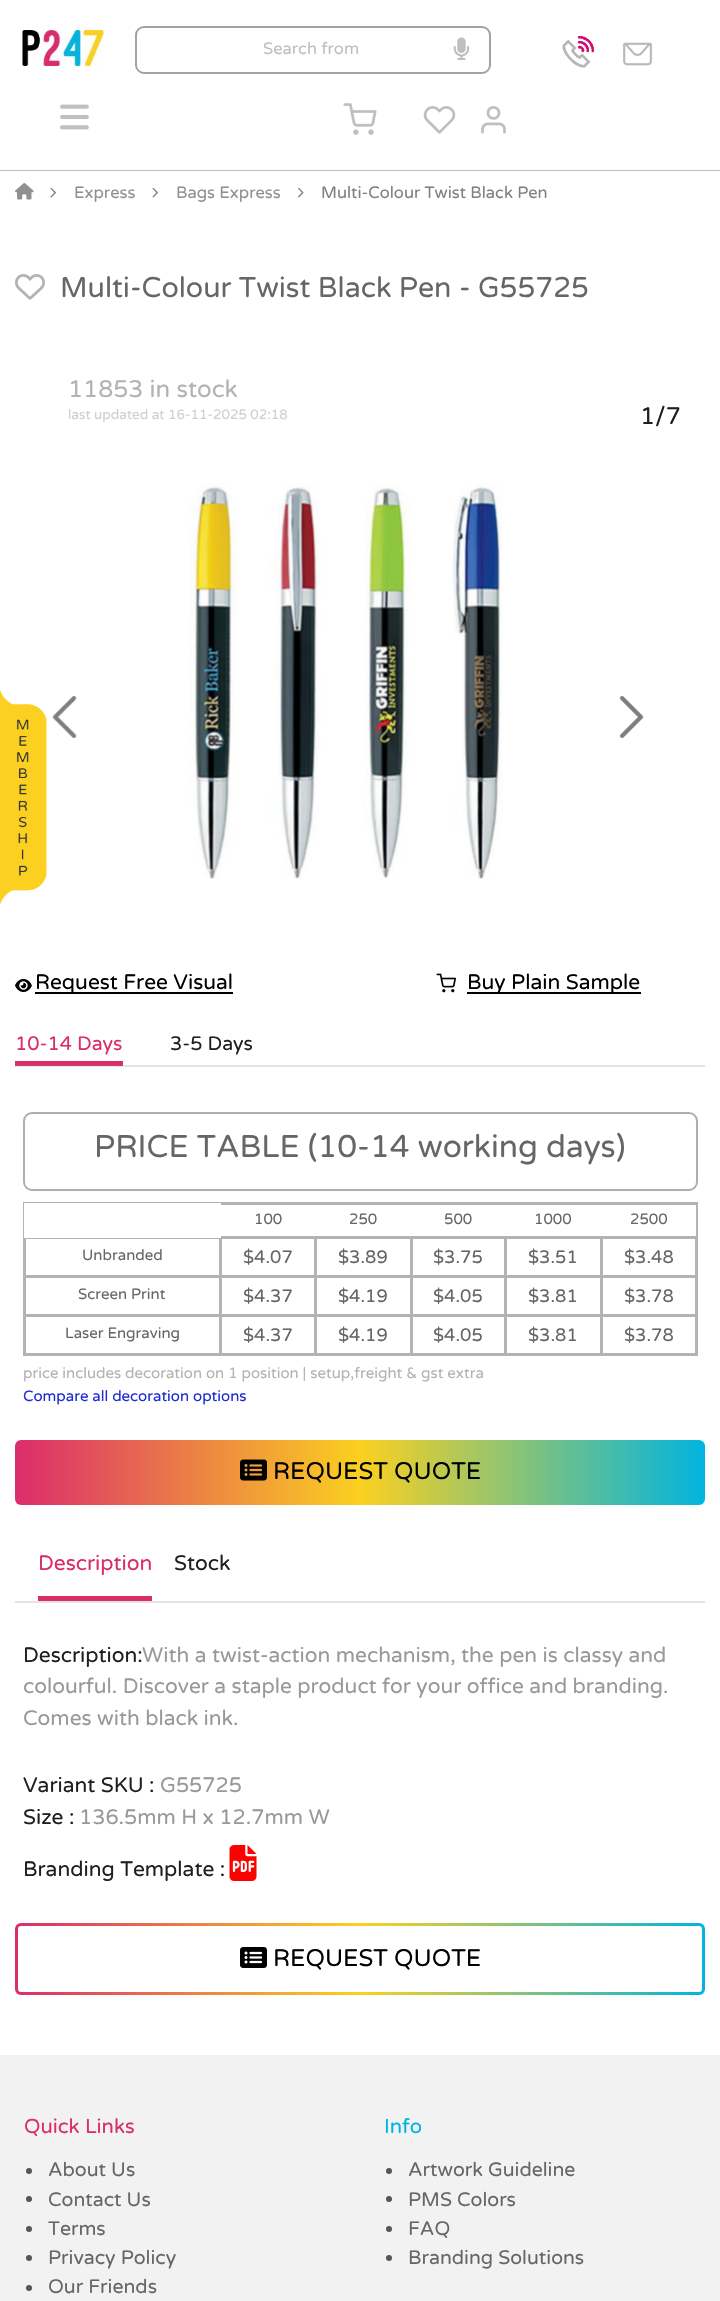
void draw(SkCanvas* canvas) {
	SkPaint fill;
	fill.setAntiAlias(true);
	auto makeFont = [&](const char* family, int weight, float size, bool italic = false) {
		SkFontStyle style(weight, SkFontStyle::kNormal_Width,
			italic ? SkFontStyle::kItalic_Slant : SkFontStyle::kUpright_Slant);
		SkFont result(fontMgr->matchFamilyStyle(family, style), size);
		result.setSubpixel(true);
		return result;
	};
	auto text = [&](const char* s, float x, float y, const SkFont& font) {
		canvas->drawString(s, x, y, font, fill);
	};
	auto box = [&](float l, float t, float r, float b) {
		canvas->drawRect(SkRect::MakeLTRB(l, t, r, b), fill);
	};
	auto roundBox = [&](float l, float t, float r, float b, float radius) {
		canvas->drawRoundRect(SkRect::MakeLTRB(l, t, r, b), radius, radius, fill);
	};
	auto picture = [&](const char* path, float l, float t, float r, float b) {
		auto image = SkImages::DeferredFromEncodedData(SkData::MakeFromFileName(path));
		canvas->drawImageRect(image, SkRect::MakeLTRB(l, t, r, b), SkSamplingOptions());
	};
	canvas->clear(0xFFFFFFFF);
	fill.setColor(0xFFE3E3E3);
	box(15, 1065, 705, 1067);
	fill.setColor(0xFFBFBFBF);
	box(0, 170, 720, 171);
	picture("image0.png", 22, 30, 104, 66);
	fill.setStyle(SkPaint::kStroke_Style);
	fill.setStrokeWidth(2);
	fill.setColor(0xFFA2A2A2);
	canvas->drawRoundRect(SkRect::MakeLTRB(136, 27, 490, 73), 8, 8, fill);
	picture("image1.png", 453, 37, 470, 60);
	picture("image2.png", 562, 36, 594, 68);
	picture("image3.png", 623, 42, 653, 66);
	picture("image4.png", 343, 103, 377, 135);
	picture("image5.png", 423, 106, 456, 134);
	picture("image6.png", 481, 106, 506, 134);
	picture("image7.png", 60, 104, 89, 130);
	picture("image8.png", 15, 183, 34, 200);
	picture("image9.png", 50, 187, 56, 198);
	picture("image9.png", 152, 187, 158, 198);
	picture("image10.png", 298, 187, 304, 198);
	picture("image11.png", 15, 274, 45, 300);
	picture("image12.png", 52, 696, 77, 738);
	picture("image13.png", 190, 483, 502, 879);
	picture("image14.png", 619, 696, 644, 738);
	picture("image15.png", 15, 978, 32, 993);
	fill.setStyle(SkPaint::kFill_Style);
	fill.setColor(0xFF000000);
	box(35, 992, 233, 994);
	picture("image16.png", 436, 973, 456, 993);
	box(467, 992, 641, 994);
	fill.setColor(0xFFDB2C6C);
	box(15, 1061, 123, 1065);
	fill.setColor(0xFFC84575);
	box(15, 1065, 123, 1066);
	fill.setStyle(SkPaint::kStroke_Style);
	fill.setColor(0xFFAEAEAE);
	canvas->drawRoundRect(SkRect::MakeLTRB(24, 1113, 697, 1190), 8, 8, fill);
	fill.setStyle(SkPaint::kFill_Style);
	fill.setColor(0xFFB3B3B3);
	box(23, 1202, 698, 1205);
	box(600, 1236, 698, 1239);
	box(600, 1275, 698, 1278);
	box(600, 1314, 698, 1317);
	box(695, 1314, 698, 1356);
	box(695, 1275, 698, 1317);
	box(695, 1236, 698, 1278);
	box(695, 1202, 698, 1239);
	fill.setColor(0xFFFFFFFF);
	box(695, 1205, 696, 1236);
	fill.setColor(0xFFB3B3B3);
	box(600, 1353, 698, 1356);
	box(600, 1314, 603, 1356);
	box(504, 1314, 603, 1317);
	box(600, 1275, 603, 1317);
	box(504, 1275, 603, 1278);
	box(600, 1236, 603, 1278);
	box(504, 1236, 603, 1239);
	box(504, 1353, 603, 1356);
	box(504, 1314, 507, 1356);
	box(410, 1314, 507, 1317);
	box(504, 1275, 507, 1317);
	box(410, 1275, 507, 1278);
	box(504, 1236, 507, 1278);
	box(410, 1236, 507, 1239);
	box(410, 1353, 507, 1356);
	box(410, 1314, 413, 1356);
	box(314, 1314, 413, 1317);
	box(410, 1275, 413, 1317);
	box(314, 1275, 413, 1278);
	box(410, 1236, 413, 1278);
	box(314, 1236, 413, 1239);
	box(314, 1353, 413, 1356);
	box(314, 1314, 317, 1356);
	box(219, 1314, 317, 1317);
	box(314, 1275, 317, 1317);
	box(219, 1275, 317, 1278);
	box(314, 1236, 317, 1278);
	box(219, 1236, 317, 1239);
	box(219, 1353, 317, 1356);
	box(219, 1314, 222, 1356);
	box(23, 1314, 222, 1317);
	box(219, 1275, 222, 1317);
	box(23, 1275, 222, 1278);
	box(219, 1236, 222, 1278);
	box(23, 1238, 222, 1239);
	box(23, 1353, 222, 1356);
	box(23, 1314, 26, 1356);
	box(23, 1275, 26, 1317);
	box(23, 1236, 26, 1278);
	box(23, 1202, 26, 1239);
	fill.setColor(0xFFFFFFFF);
	box(24, 1203, 221, 1238);
	{
		const SkColor colors[] = {0xFFDB2C6C, 0xFFFBD020, 0xFF01B4DF};
		const float stops[] = {0, 0.5f, 1};
		const SkPoint ends[] = {{15, 1472}, {705, 1472}};
		fill.setShader(SkGradientShader::MakeLinear(ends, colors, stops, 3, SkTileMode::kClamp));
		fill.setAlpha(255);
	}
	roundBox(15, 1440, 705, 1505, 6);
	picture("image17.png", 240, 1459, 267, 1481);
	fill.setShader(nullptr);
	fill.setColor(0xFFDB2C6C);
	box(38, 1596, 152, 1601);
	fill.setColor(0xFFE3E3E3);
	box(15, 1601, 705, 1603);
	picture("image18.png", 229, 1845, 257, 1881);
	{
		const SkColor colors[] = {0xFFDB2C6C, 0xFFFBD020, 0xFF01B4DF};
		const float stops[] = {0, 0.5f, 1};
		const SkPoint ends[] = {{15, 1959}, {705, 1959}};
		fill.setShader(SkGradientShader::MakeLinear(ends, colors, stops, 3, SkTileMode::kClamp));
		fill.setAlpha(255);
	}
	roundBox(15, 1923, 705, 1995, 6);
	fill.setShader(nullptr);
	fill.setColor(0xFFFFFFFF);
	canvas->drawPath(SkPathBuilder().moveTo(21, 1926).cubicTo(19, 1926, 18, 1927, 18, 1929).lineTo(18, 1989).cubicTo(18, 1991, 19, 1992, 21, 1992).lineTo(699, 1992).cubicTo(701, 1992, 702, 1991, 702, 1989).lineTo(702, 1929).cubicTo(702, 1927, 701, 1926, 699, 1926).close().detach(), fill);
	picture("image19.png", 240, 1947, 267, 1968);
	picture("image20.png", 0, 690, 47, 905);
	fill.setColor(0xFFF2F2F2);
	box(0, 2055, 720, 2301);
	fill.setColor(0xFF555555);
	canvas->drawCircle(29, 2171, 3, fill);
	canvas->drawCircle(29, 2199, 3, fill);
	canvas->drawCircle(29, 2229, 3, fill);
	canvas->drawCircle(29, 2258, 3, fill);
	canvas->drawCircle(29, 2288, 3, fill);
	canvas->drawCircle(389, 2171, 3, fill);
	canvas->drawCircle(389, 2199, 3, fill);
	canvas->drawCircle(389, 2229, 3, fill);
	canvas->drawCircle(389, 2258, 3, fill);
	auto font1 = makeFont("Varela Round", 400, 16.5f);
	fill.setColor(0xFFBFBFBF);
	text("Search from", 263, 54, font1);
	fill.setColor(0xFF909090);
	text("Express", 74, 198, font1);
	text("Bags Express", 176, 198, font1);
	fill.setColor(0xFF808080);
	text("Multi-Colour Twist Black Pen", 321, 198, font1);
	auto font2 = makeFont("Varela Round", 400, 28.5f);
	fill.setColor(0xFF666666);
	text("Multi-Colour Twist Black Pen - G55725", 60, 297, font2);
	auto font3 = makeFont("Varela Round", 400, 24);
	fill.setColor(0xFFB3B3B3);
	text("11853 in stock", 68, 397, font3);
	auto font4 = makeFont("Varela Round", 400, 13.5f);
	fill.setColor(0xFFD1CFCF);
	text("last updated at 16-11-2025 02:18", 68, 419, font4);
	fill.setColor(0xFF1F1F1F);
	text("1/7", 640, 424, font3);
	auto font5 = makeFont("Varela Round", 400, 21);
	fill.setColor(0xFF000000);
	text("Request Free Visual", 35, 989, font5);
	text("Buy Plain Sample", 467, 989, font5);
	auto font6 = makeFont("Varela Round", 400, 19.5f);
	fill.setColor(0xFFDB2C6C);
	text("10-14 Days", 15, 1050, font6);
	fill.setColor(0xFF1F1F1F);
	text("3-5 Days", 170, 1050, font6);
	auto font7 = makeFont("Varela Round", 400, 31.5f);
	fill.setColor(0xFF666666);
	text("PRICE TABLE (10-14 working days)", 94, 1157, font7);
	auto font8 = makeFont("Varela Round", 400, 15);
	text("100", 254, 1224, font8);
	text("250", 349, 1224, font8);
	text("500", 444, 1224, font8);
	text("1000", 534, 1224, font8);
	text("2500", 630, 1224, font8);
	text("Unbranded", 82, 1260, font8);
	auto font9 = makeFont("Varela Round", 400, 18);
	text("$4.07", 243, 1263, font9);
	text("$3.89", 338, 1263, font9);
	text("$3.75", 433, 1263, font9);
	text("$3.51", 528, 1263, font9);
	text("$3.48", 624, 1263, font9);
	text("Screen Print", 78, 1299, font8);
	text("$4.37", 243, 1302, font9);
	text("$4.19", 338, 1302, font9);
	text("$4.05", 433, 1302, font9);
	text("$3.81", 528, 1302, font9);
	text("$3.78", 624, 1302, font9);
	text("Laser Engraving", 65, 1338, font8);
	text("$4.37", 243, 1341, font9);
	text("$4.19", 338, 1341, font9);
	text("$4.05", 433, 1341, font9);
	text("$3.81", 528, 1341, font9);
	text("$3.78", 624, 1341, font9);
	fill.setColor(0xFFB3B3B3);
	text("price includes decoration on 1 position | setup,freight & gst extra", 23, 1378, font8);
	fill.setColor(0xFF1C2BD3);
	text("Compare all decoration options", 23, 1401, font8);
	fill.setColor(0xFF000000);
	text("REQUEST QUOTE", 273, 1479, font3);
	fill.setColor(0xFFDB2C6C);
	text("Description", 38, 1570, font5);
	fill.setColor(0xFF1F1F1F);
	text("Stock", 174, 1570, font5);
	text("Description:", 23, 1662, font5);
	fill.setColor(0xFF999999);
	text("With a twist-action mechanism, the pen is classy and", 142, 1662, font5);
	text("colourful. Discover a staple product for your office and branding.", 23, 1693, font5);
	text("Comes with black ink.", 23, 1725, font5);
	fill.setColor(0xFF1F1F1F);
	text("Variant SKU :", 23, 1792, font5);
	fill.setColor(0xFF999999);
	text("G55725", 160, 1792, font5);
	fill.setColor(0xFF1F1F1F);
	text("Size :", 23, 1824, font5);
	fill.setColor(0xFF999999);
	text("136.5mm H x 12.7mm W", 79, 1824, font5);
	fill.setColor(0xFF1F1F1F);
	text("Branding Template :", 23, 1876, font5);
	fill.setColor(0xFF000000);
	text("REQUEST QUOTE", 273, 1966, font3);
	auto font10 = makeFont("Varela Round", 400, 20.25f);
	fill.setColor(0xFFDB2C6C);
	text("Quick Links", 24, 2133, font10);
	fill.setColor(0xFF666666);
	text("About Us", 48, 2176, font6);
	text("Contact Us", 48, 2206, font6);
	text("Terms", 48, 2235, font6);
	text("Privacy Policy", 48, 2264, font6);
	text("Our Friends", 48, 2293, font6);
	fill.setColor(0xFF01B4DF);
	text("Info", 384, 2133, font10);
	fill.setColor(0xFF666666);
	text("Artwork Guideline", 408, 2176, font6);
	text("PMS Colors", 408, 2206, font6);
	text("FAQ", 408, 2235, font6);
	text("Branding Solutions", 408, 2264, font6);
}
